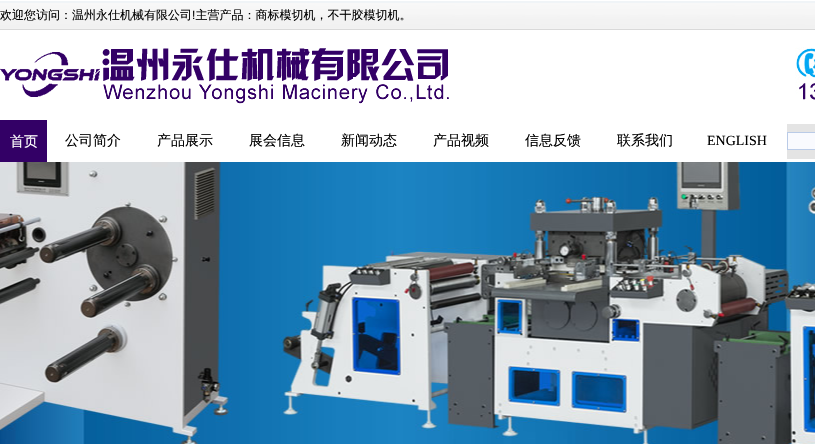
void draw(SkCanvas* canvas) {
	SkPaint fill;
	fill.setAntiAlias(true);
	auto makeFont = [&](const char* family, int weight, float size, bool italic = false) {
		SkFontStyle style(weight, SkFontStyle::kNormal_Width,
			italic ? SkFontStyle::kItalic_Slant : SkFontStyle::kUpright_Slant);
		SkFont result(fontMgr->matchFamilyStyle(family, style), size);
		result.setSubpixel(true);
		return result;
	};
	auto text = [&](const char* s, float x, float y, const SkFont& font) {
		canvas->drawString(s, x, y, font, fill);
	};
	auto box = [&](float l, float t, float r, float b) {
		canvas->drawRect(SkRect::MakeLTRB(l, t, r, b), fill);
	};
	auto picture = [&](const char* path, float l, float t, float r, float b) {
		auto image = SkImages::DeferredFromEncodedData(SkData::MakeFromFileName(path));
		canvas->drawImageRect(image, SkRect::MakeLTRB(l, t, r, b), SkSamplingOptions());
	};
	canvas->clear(0xFFFFFFFF);
	picture("image0.png", 0, 1, 815, 30);
	picture("image1.png", 0, 48, 449, 104);
	picture("image2.png", 795, 47, 815, 100);
	fill.setColor(0xFF330066);
	box(0, 120, 47, 162);
	fill.setColor(0xFFE4E4E4);
	box(787, 124, 815, 159);
	fill.setColor(0xFFF9FAFE);
	canvas->drawRect(SkRect::MakeLTRB(787.5f, 132.5f, 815.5f, 149.5f), fill);
	fill.setStyle(SkPaint::kStroke_Style);
	fill.setStrokeWidth(1);
	fill.setColor(0xFFBACBE7);
	canvas->drawRect(SkRect::MakeLTRB(787.5f, 132.5f, 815.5f, 149.5f), fill);
	picture("image3.png", 0, 162, 815, 444);
	auto font1 = makeFont("WenQuanYi Zen Hei", 500, 12);
	fill.setStyle(SkPaint::kFill_Style);
	fill.setColor(0xFF000000);
	text("欢迎您访问：温州永仕机械有限公司 主营产品：商标模切机，不干胶模切机。", 0, 19, font1);
	auto font2 = makeFont("Liberation Sans", 400, 12);
	text("!", 192, 19, font2);
	auto font3 = makeFont("WenQuanYi Zen Hei", 500, 14);
	fill.setColor(0xFFFFFFFF);
	text("首页", 10, 146, font3);
	fill.setColor(0xFF000000);
	text("公司简介", 65, 145, font3);
	text("产品展示", 157, 145, font3);
	text("展会信息", 249, 145, font3);
	text("新闻动态", 341, 145, font3);
	text("产品视频", 433, 145, font3);
	text("信息反馈", 525, 145, font3);
	text("联系我们", 617, 145, font3);
	auto font4 = makeFont("Liberation Serif", 400, 14);
	text("ENGLISH", 707, 145, font4);
}
